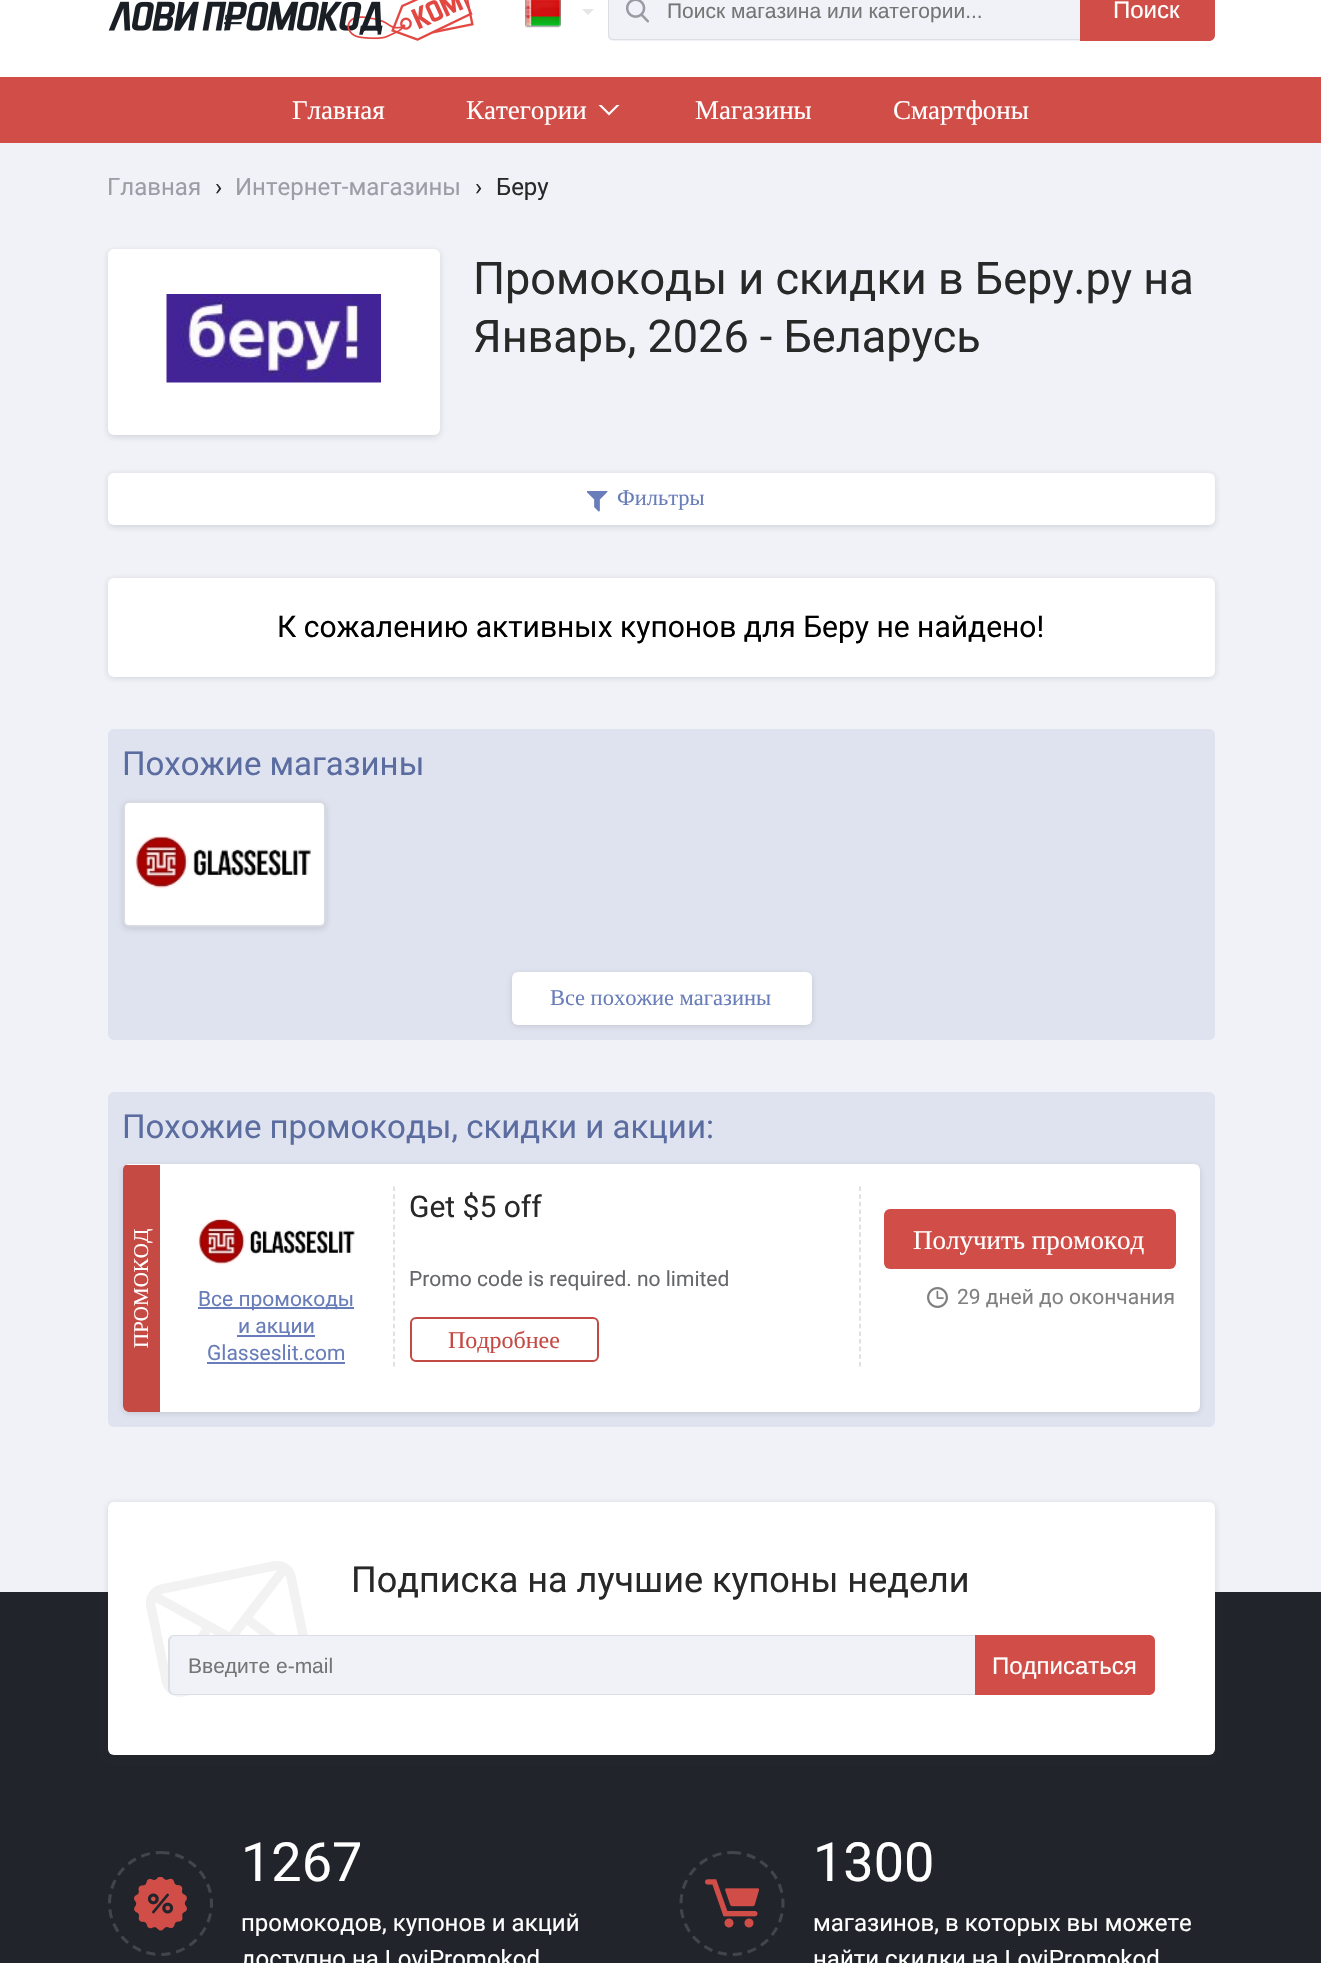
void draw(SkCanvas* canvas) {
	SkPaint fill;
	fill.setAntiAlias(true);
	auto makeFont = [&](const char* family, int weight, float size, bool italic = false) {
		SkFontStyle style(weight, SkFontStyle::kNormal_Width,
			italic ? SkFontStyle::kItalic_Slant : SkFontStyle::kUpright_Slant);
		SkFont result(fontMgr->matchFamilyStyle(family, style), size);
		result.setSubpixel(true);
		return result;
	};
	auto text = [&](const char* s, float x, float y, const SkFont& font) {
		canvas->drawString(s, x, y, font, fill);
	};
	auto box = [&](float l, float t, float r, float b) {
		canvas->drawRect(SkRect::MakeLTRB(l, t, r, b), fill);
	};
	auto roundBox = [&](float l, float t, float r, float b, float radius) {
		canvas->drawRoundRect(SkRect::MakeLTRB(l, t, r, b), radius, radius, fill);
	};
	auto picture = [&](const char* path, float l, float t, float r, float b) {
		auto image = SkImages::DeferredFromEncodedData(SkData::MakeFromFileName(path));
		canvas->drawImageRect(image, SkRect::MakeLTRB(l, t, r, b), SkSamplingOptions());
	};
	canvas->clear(0xFFF0F2F8);
	fill.setColor(0xFFFFFFFF);
	box(0, 0, 1321, 77);
	picture("image0.png", 108, 0, 474, 41);
	picture("image1.png", 525, 0, 561, 28);
	fill.setColor(0xFFE6E6E6);
	canvas->drawPath(SkPathBuilder().moveTo(582, 9).lineTo(594, 9).lineTo(588, 15).close().detach(), fill);
	fill.setColor(0xFFF0F2F8);
	canvas->drawPath(SkPathBuilder().moveTo(614, -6).lineTo(1080, -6).lineTo(1080, 41).lineTo(614, 41).cubicTo(610.5f, 41, 608, 38.5f, 608, 35).lineTo(608, 0).cubicTo(608, -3.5f, 610.5f, -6, 614, -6).close().detach(), fill);
	fill.setColor(0xFFDBDEE7);
	canvas->drawPath(SkPathBuilder(SkPathFillType::kEvenOdd).moveTo(614, -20).lineTo(1080, -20).lineTo(1080, 40).lineTo(614, 40).cubicTo(610, 40, 608, 38, 608, 34).lineTo(608, -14).cubicTo(608, -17, 610, -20, 614, -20).close().moveTo(614, -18).lineTo(1080, -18).lineTo(1080, 39).lineTo(614, 39).cubicTo(611, 39, 609, 37, 609, 34).lineTo(609, -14).cubicTo(609, -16, 611, -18, 614, -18).close().detach(), fill);
	picture("image2.png", 626, 0, 649, 23);
	fill.setColor(0xFFD14D48);
	canvas->drawPath(SkPathBuilder().moveTo(1080, -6).lineTo(1209, -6).cubicTo(1212.5f, -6, 1215, -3.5f, 1215, 0).lineTo(1215, 35).cubicTo(1215, 38.5f, 1212.5f, 41, 1209, 41).lineTo(1080, 41).close().detach(), fill);
	box(0, 77, 1321, 143);
	fill.setColor(0xFFFFFFFF);
	canvas->drawPath(SkPathBuilder().moveTo(598.5f, 105).lineTo(619.5f, 105).lineTo(609, 115.5f).close().detach(), fill);
	fill.setColor(0xFFD14D48);
	canvas->drawPath(SkPathBuilder().moveTo(598.5f, 102).lineTo(619.5f, 102).lineTo(609, 112.5f).close().detach(), fill);
	fill.setColor(0x261F1F22);
	fill.setMaskFilter(SkMaskFilter::MakeBlur(kNormal_SkBlurStyle, 3));
	canvas->drawRoundRect(SkRect::MakeLTRB(108, 251, 440, 437), 6, 6, fill);
	fill.setMaskFilter(nullptr);
	fill.setColor(0xFFFFFFFF);
	roundBox(108, 249, 440, 435, 6);
	picture("image3.png", 166, 294, 381, 383);
	fill.setColor(0x261F1F22);
	fill.setMaskFilter(SkMaskFilter::MakeBlur(kNormal_SkBlurStyle, 3));
	canvas->drawRoundRect(SkRect::MakeLTRB(108, 474, 1215, 527), 6, 6, fill);
	fill.setMaskFilter(nullptr);
	fill.setColor(0xFFFFFFFF);
	roundBox(108, 473, 1215, 525, 6);
	picture("image4.png", 587, 491, 608, 512);
	fill.setColor(0x261F1F22);
	fill.setMaskFilter(SkMaskFilter::MakeBlur(kNormal_SkBlurStyle, 3));
	canvas->drawRoundRect(SkRect::MakeLTRB(108, 579, 1215, 678), 6, 6, fill);
	fill.setMaskFilter(nullptr);
	fill.setColor(0xFFFFFFFF);
	roundBox(108, 578, 1215, 677, 6);
	fill.setColor(0xFFDFE3EF);
	roundBox(108, 729, 1215, 1040, 6);
	fill.setColor(0x261F1F22);
	fill.setMaskFilter(SkMaskFilter::MakeBlur(kNormal_SkBlurStyle, 3));
	canvas->drawRoundRect(SkRect::MakeLTRB(123, 803, 326, 929), 6, 6, fill);
	fill.setMaskFilter(nullptr);
	fill.setColor(0xFFFFFFFF);
	canvas->drawRoundRect(SkRect::MakeLTRB(124, 802, 325, 926), 5, 5, fill);
	fill.setStyle(SkPaint::kStroke_Style);
	fill.setStrokeWidth(2);
	fill.setColor(0xFFD7DAE2);
	canvas->drawRoundRect(SkRect::MakeLTRB(124, 802, 325, 926), 5, 5, fill);
	picture("image5.png", 135, 836, 311, 889);
	fill.setStyle(SkPaint::kFill_Style);
	fill.setColor(0x261F1F22);
	fill.setMaskFilter(SkMaskFilter::MakeBlur(kNormal_SkBlurStyle, 3));
	canvas->drawRoundRect(SkRect::MakeLTRB(512, 974, 812, 1026), 6, 6, fill);
	fill.setMaskFilter(nullptr);
	fill.setColor(0xFFFFFFFF);
	roundBox(512, 972, 812, 1025, 6);
	fill.setColor(0xFFDFE3EF);
	roundBox(108, 1092, 1215, 1427, 6);
	fill.setColor(0x261F1F22);
	fill.setMaskFilter(SkMaskFilter::MakeBlur(kNormal_SkBlurStyle, 3));
	canvas->drawRoundRect(SkRect::MakeLTRB(123, 1166, 1200, 1413), 6, 6, fill);
	fill.setMaskFilter(nullptr);
	fill.setColor(0xFFFFFFFF);
	roundBox(123, 1164, 1200, 1412, 6);
	canvas->save();
	canvas->clipPath(SkPathBuilder().moveTo(129, 1164).lineTo(1194, 1164).cubicTo(1197.5f, 1164, 1200, 1166.5f, 1200, 1170).lineTo(1200, 1406).cubicTo(1200, 1409.5f, 1197.5f, 1412, 1194, 1412).lineTo(129, 1412).cubicTo(125.5f, 1412, 123, 1409.5f, 123, 1406).lineTo(123, 1170).cubicTo(123, 1166.5f, 125.5f, 1164, 129, 1164).close().detach(), true);
	fill.setColor(0xFFC64A44);
	canvas->drawPath(SkPathBuilder().moveTo(123, 1165).lineTo(160, 1165).lineTo(160, 1412).lineTo(129, 1412).cubicTo(125.5f, 1412, 123, 1409.5f, 123, 1406).close().detach(), fill);
	canvas->restore();
	picture("image6.png", 198, 1218, 355, 1265);
	fill.setColor(0xFF687DB9);
	box(198, 1307, 354, 1309);
	box(237, 1335, 315, 1337);
	box(207, 1362, 345, 1364);
	fill.setStyle(SkPaint::kStroke_Style);
	fill.setStrokeWidth(1.5f);
	fill.setColor(0xFFD7D7D7);
	fill.setPathEffect(SkDashPathEffect::Make({{4.5f, 3.13f}}, 0));
	canvas->drawPath(SkPathBuilder().moveTo(860, 1186.5f).lineTo(860, 1366.5f).detach(), fill);
	fill.setPathEffect(nullptr);
	fill.setPathEffect(SkDashPathEffect::Make({{4.5f, 3.13f}}, 0));
	canvas->drawPath(SkPathBuilder().moveTo(394, 1186.5f).lineTo(394, 1366.5f).detach(), fill);
	fill.setPathEffect(nullptr);
	fill.setStrokeWidth(2);
	fill.setColor(0xFFC54943);
	canvas->drawRoundRect(SkRect::MakeLTRB(411, 1318, 598, 1361), 5, 5, fill);
	fill.setStyle(SkPaint::kFill_Style);
	fill.setColor(0xFFD14D48);
	roundBox(884, 1209, 1176, 1269, 6);
	picture("image7.png", 927, 1287, 948, 1308);
	fill.setColor(0xFF21242A);
	box(0, 1592, 1321, 1963);
	fill.setColor(0x261F1F22);
	fill.setMaskFilter(SkMaskFilter::MakeBlur(kNormal_SkBlurStyle, 3));
	canvas->drawRoundRect(SkRect::MakeLTRB(108, 1503, 1215, 1757), 6, 6, fill);
	fill.setMaskFilter(nullptr);
	fill.setColor(0xFFFFFFFF);
	roundBox(108, 1502, 1215, 1755, 6);
	picture("image8.png", 146, 1561, 308, 1697);
	fill.setColor(0xFFF0F2F8);
	canvas->drawPath(SkPathBuilder().moveTo(174, 1635).lineTo(975, 1635).lineTo(975, 1695).lineTo(174, 1695).cubicTo(170.5f, 1695, 168, 1692.5f, 168, 1689).lineTo(168, 1641).cubicTo(168, 1637.5f, 170.5f, 1635, 174, 1635).close().detach(), fill);
	fill.setColor(0xFFDBDEE7);
	canvas->drawPath(SkPathBuilder(SkPathFillType::kEvenOdd).moveTo(174, 1635).lineTo(975, 1635).lineTo(975, 1695).lineTo(174, 1695).cubicTo(171, 1695, 168, 1692, 168, 1689).lineTo(168, 1641).cubicTo(168, 1638, 171, 1635, 174, 1635).close().moveTo(174, 1636).lineTo(975, 1636).lineTo(975, 1694).lineTo(174, 1694).cubicTo(172, 1694, 170, 1691, 170, 1689).lineTo(170, 1641).cubicTo(170, 1639, 172, 1636, 174, 1636).close().detach(), fill);
	fill.setColor(0xFFD14D48);
	canvas->drawPath(SkPathBuilder().moveTo(975, 1635).lineTo(1149, 1635).cubicTo(1152.5f, 1635, 1155, 1637.5f, 1155, 1641).lineTo(1155, 1689).cubicTo(1155, 1692.5f, 1152.5f, 1695, 1149, 1695).lineTo(975, 1695).close().detach(), fill);
	fill.setStyle(SkPaint::kStroke_Style);
	fill.setStrokeWidth(3);
	fill.setColor(0xFF43454C);
	fill.setPathEffect(SkDashPathEffect::Make({{9, 6}}, 0));
	canvas->drawPath(SkPathBuilder().moveTo(160.5f, 1852.5f).cubicTo(188.5f, 1852.5f, 211.5f, 1875.5f, 211.5f, 1903.5f).cubicTo(211.5f, 1931.5f, 188.5f, 1954.5f, 160.5f, 1954.5f).cubicTo(132.5f, 1954.5f, 109.5f, 1931.5f, 109.5f, 1903.5f).cubicTo(109.5f, 1875.5f, 132.5f, 1852.5f, 160.5f, 1852.5f).close().detach(), fill);
	fill.setPathEffect(nullptr);
	picture("image9.png", 134, 1877, 187, 1931);
	fill.setPathEffect(SkDashPathEffect::Make({{9, 6}}, 0));
	canvas->drawPath(SkPathBuilder().moveTo(732, 1852.5f).cubicTo(760, 1852.5f, 783, 1875.5f, 783, 1903.5f).cubicTo(783, 1931.5f, 760, 1954.5f, 732, 1954.5f).cubicTo(704, 1954.5f, 681, 1931.5f, 681, 1903.5f).cubicTo(681, 1875.5f, 704, 1852.5f, 732, 1852.5f).close().detach(), fill);
	fill.setPathEffect(nullptr);
	picture("image10.png", 705, 1879, 759, 1928);
	auto font1 = makeFont("Liberation Sans", 400, 21);
	fill.setStyle(SkPaint::kFill_Style);
	fill.setColor(0xFF757575);
	text("Поиск магазина или категории...", 667, 18, font1);
	auto font2 = makeFont("Liberation Sans", 400, 24);
	fill.setColor(0xFFFFFFFF);
	text("Поиск", 1113, 18, font2);
	auto font3 = makeFont("Liberation Serif", 400, 27);
	text("Главная", 292, 119, font3);
	text("Категории", 466, 119, font3);
	text("Магазины", 695, 119, font3);
	text("Смартфоны", 893, 119, font3);
	auto font4 = makeFont("Roboto", 400, 24);
	fill.setColor(0xFF9B9EA6);
	text("Главная", 107, 195, font4);
	fill.setColor(0xFF282828);
	text("›", 215, 195, font4);
	fill.setColor(0xFF9B9EA6);
	text("Интернет-магазины", 235, 195, font4);
	fill.setColor(0xFF282828);
	text("›", 475, 195, font4);
	text("Беру", 496, 195, font4);
	auto font5 = makeFont("Roboto", 400, 45);
	text("Промокоды и скидки в Беру.ру на", 473, 294, font5);
	text("Январь, 2026 - Беларусь", 473, 352, font5);
	auto font6 = makeFont("Liberation Serif", 400, 22.5f);
	fill.setColor(0xFF687DB9);
	text("Фильтры", 617, 505, font6);
	auto font7 = makeFont("Roboto", 400, 30);
	fill.setColor(0xFF000000);
	text("К сожалению активных купонов для Беру не найдено!", 277, 637, font7);
	auto font8 = makeFont("Roboto", 400, 33);
	fill.setColor(0xFF5B6DA0);
	text("Похожие магазины", 122, 775, font8);
	fill.setColor(0xFF687DB9);
	text("Все похожие магазины", 550, 1005, font6);
	fill.setColor(0xFF5B6DA0);
	text("Похожие промокоды, скидки и акции:", 122, 1138, font8);
	auto font9 = makeFont("Liberation Serif", 400, 21);
	fill.setColor(0xFFFFFFFF);
	canvas->save();
	canvas->rotate(-90, 148, 1348);
	text("ПРОМОКОД", 148, 1348, font9);
	canvas->restore();
	auto font10 = makeFont("Roboto", 400, 21);
	fill.setColor(0xFF687DB9);
	text("Все промокоды", 198, 1306, font10);
	text("и акции", 238, 1333, font10);
	text("Glasseslit.com", 207, 1360, font10);
	fill.setColor(0xFF282828);
	text("Get $5 off", 409, 1217, font7);
	fill.setColor(0xFF65676B);
	text("Promo code is required. no limited", 409, 1286, font10);
	auto font11 = makeFont("Liberation Serif", 400, 24);
	fill.setColor(0xFFC54943);
	text("Подробнее", 448, 1348, font11);
	fill.setColor(0xFFFFFFFF);
	text("Получить промокод", 913, 1249, font3);
	fill.setColor(0xFF808080);
	text("29 дней до окончания", 957, 1304, font10);
	auto font12 = makeFont("Roboto", 400, 36);
	fill.setColor(0xFF282828);
	text("Подписка на лучшие купоны недели", 351, 1592, font12);
	canvas->save();
	canvas->clipRect(SkRect::MakeLTRB(189, 1653, 975, 1677));
	fill.setColor(0xFF757575);
	text("Введите e-mail", 188, 1673, font1);
	canvas->restore();
	fill.setColor(0xFFFFFFFF);
	text("Подписаться", 992, 1674, font2);
	auto font13 = makeFont("Roboto", 400, 54);
	text("1267", 241, 1881, font13);
	text("промокодов, купонов и акций", 241, 1931, font4);
	text("доступно на LoviPromokod", 241, 1967, font4);
	text("1300", 813, 1881, font13);
	text("магазинов, в которых вы можете", 813, 1931, font4);
	text("найти скидки на LoviPromokod", 813, 1967, font4);
}
